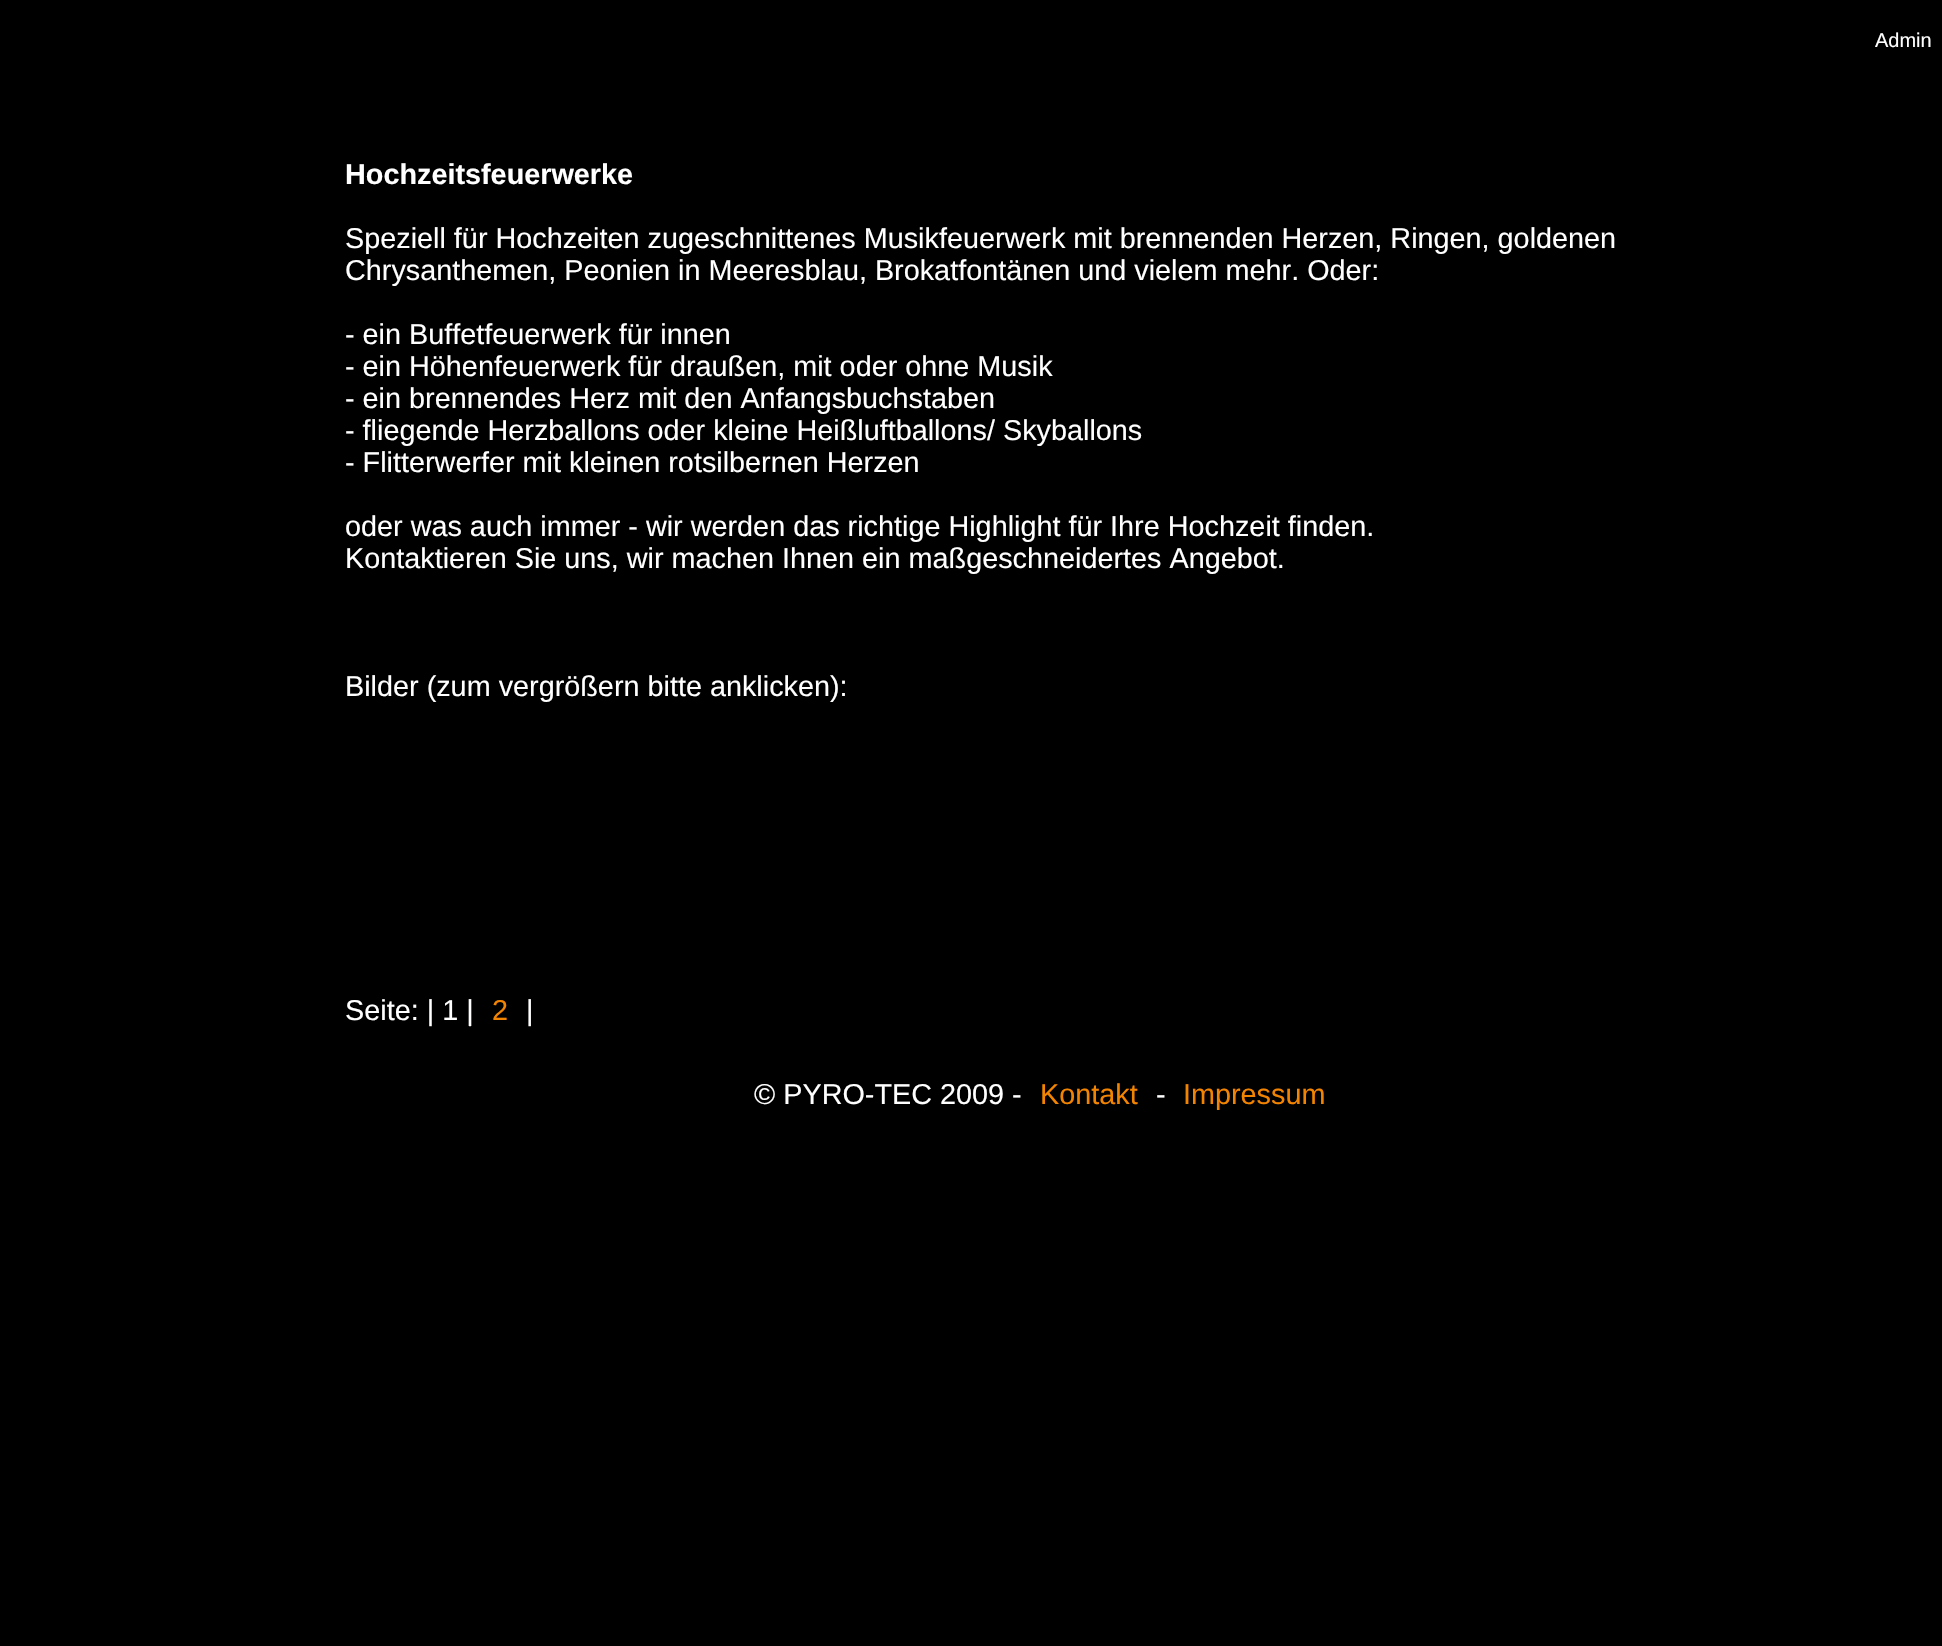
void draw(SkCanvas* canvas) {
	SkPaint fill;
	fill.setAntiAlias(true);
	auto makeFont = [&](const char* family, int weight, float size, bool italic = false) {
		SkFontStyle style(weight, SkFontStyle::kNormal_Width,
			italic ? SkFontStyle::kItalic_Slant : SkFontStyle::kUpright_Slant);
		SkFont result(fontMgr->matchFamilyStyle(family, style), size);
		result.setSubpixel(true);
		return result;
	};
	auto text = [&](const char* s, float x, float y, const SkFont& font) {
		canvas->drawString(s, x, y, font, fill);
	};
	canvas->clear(0xFF000000);
	auto font1 = makeFont("Liberation Sans", 400, 20);
	fill.setColor(0xFFFFFFFF);
	text("Admin", 1875, 47, font1);
	auto font2 = makeFont("Liberation Sans", 700, 28.8f);
	text("Hochzeitsfeuerwerke", 345, 184, font2);
	auto font3 = makeFont("Liberation Sans", 400, 28.8f);
	text("Speziell für Hochzeiten zugeschnittenes Musikfeuerwerk mit brennenden Herzen, Ringen, goldenen", 345, 248, font3);
	text("Chrysanthemen, Peonien in Meeresblau, Brokatfontänen und vielem mehr. Oder:", 345, 280, font3);
	text("- ein Buffetfeuerwerk für innen", 345, 344, font3);
	text("- ein Höhenfeuerwerk für draußen, mit oder ohne Musik", 345, 376, font3);
	text("- ein brennendes Herz mit den Anfangsbuchstaben", 345, 408, font3);
	text("- fliegende Herzballons oder kleine Heißluftballons/ Skyballons", 345, 440, font3);
	text("- Flitterwerfer mit kleinen rotsilbernen Herzen", 345, 472, font3);
	text("oder was auch immer - wir werden das richtige Highlight für Ihre Hochzeit finden.", 345, 536, font3);
	text("Kontaktieren Sie uns, wir machen Ihnen ein maßgeschneidertes Angebot.", 345, 568, font3);
	text("Bilder (zum vergrößern bitte anklicken):", 345, 696, font3);
	text("Seite: | 1 |", 345, 1020, font3);
	fill.setColor(0xFFF38401);
	text("2", 492, 1020, font3);
	fill.setColor(0xFFFFFFFF);
	text("|", 526, 1020, font3);
	text("© PYRO-TEC 2009 -", 754, 1104, font3);
	fill.setColor(0xFFF38401);
	text("Kontakt", 1040, 1104, font3);
	fill.setColor(0xFFFFFFFF);
	text("-", 1156, 1104, font3);
	fill.setColor(0xFFF38401);
	text("Impressum", 1183, 1104, font3);
}
